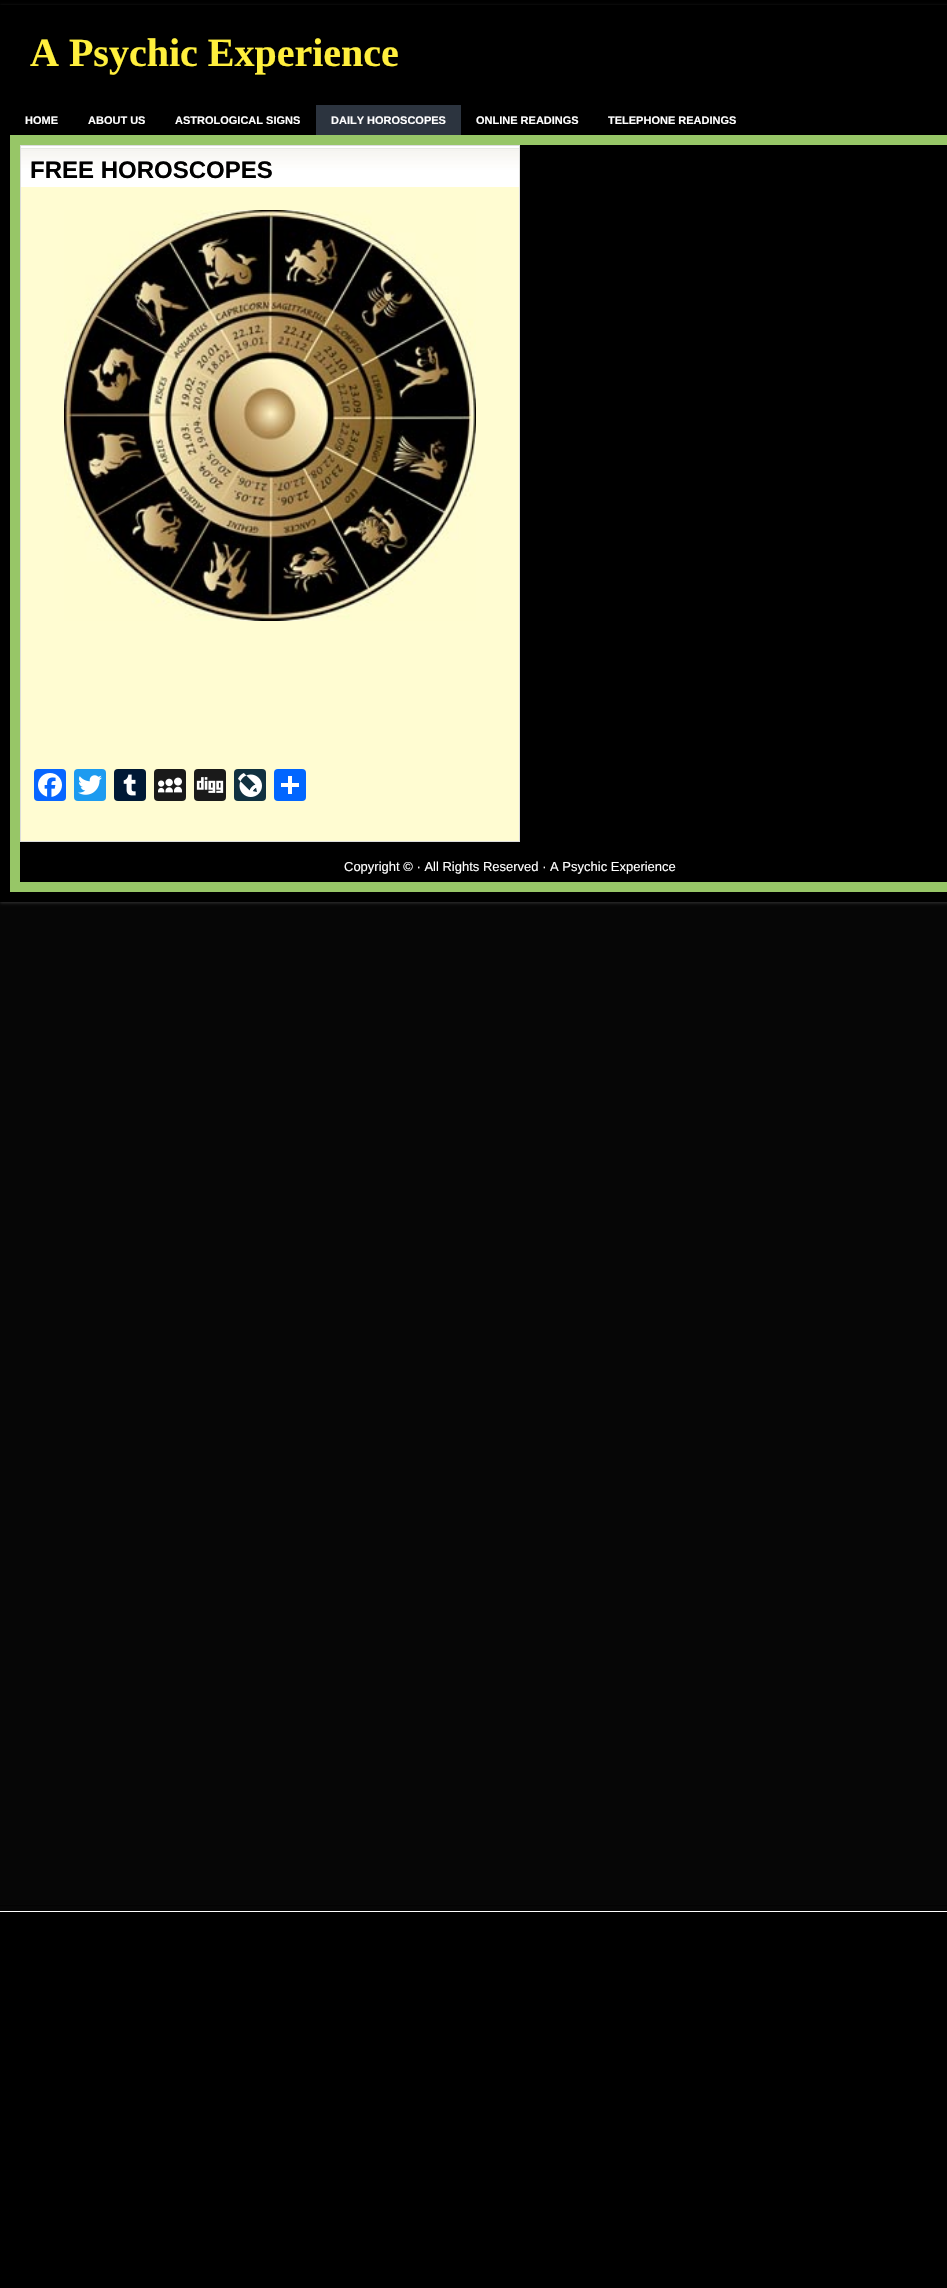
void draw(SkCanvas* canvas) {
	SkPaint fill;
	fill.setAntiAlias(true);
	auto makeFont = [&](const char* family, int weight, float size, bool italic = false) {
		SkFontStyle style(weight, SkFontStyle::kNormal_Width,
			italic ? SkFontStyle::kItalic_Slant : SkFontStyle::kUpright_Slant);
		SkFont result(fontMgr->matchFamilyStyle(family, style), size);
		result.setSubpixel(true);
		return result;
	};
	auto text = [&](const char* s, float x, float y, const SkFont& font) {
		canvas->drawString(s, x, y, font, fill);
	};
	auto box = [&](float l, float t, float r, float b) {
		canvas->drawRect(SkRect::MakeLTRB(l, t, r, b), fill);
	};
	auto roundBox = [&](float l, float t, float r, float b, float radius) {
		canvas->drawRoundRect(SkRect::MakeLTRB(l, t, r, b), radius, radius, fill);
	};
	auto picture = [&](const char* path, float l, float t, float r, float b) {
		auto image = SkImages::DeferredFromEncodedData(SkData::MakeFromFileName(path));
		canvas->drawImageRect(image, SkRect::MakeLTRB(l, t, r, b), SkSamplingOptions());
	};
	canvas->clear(0xFF000000);
	picture("image0.png", 0, 902, 947, 1912);
	fill.setColor(0xFF333333);
	fill.setMaskFilter(SkMaskFilter::MakeBlur(kNormal_SkBlurStyle, 1.5f));
	canvas->drawRect(SkRect::MakeLTRB(0, 6, 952, 903), fill);
	fill.setMaskFilter(nullptr);
	fill.setColor(0xFF97C667);
	box(10, 135, 947, 892);
	fill.setStyle(SkPaint::kStroke_Style);
	fill.setStrokeWidth(10);
	fill.setColor(0xFF000000);
	canvas->drawRect(SkRect::MakeLTRB(5, 10, 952, 897), fill);
	fill.setStyle(SkPaint::kFill_Style);
	box(10, 15, 947, 135);
	fill.setColor(0xFF2C343F);
	box(316, 105, 461, 135);
	fill.setColor(0xFF000000);
	box(20, 145, 947, 882);
	fill.setColor(0xFFFFFCD2);
	box(21, 187, 519, 841);
	picture("image1.png", 21, 146, 519, 187);
	fill.setStyle(SkPaint::kStroke_Style);
	fill.setStrokeWidth(1);
	fill.setColor(0xFFDDDDDD);
	canvas->drawRect(SkRect::MakeLTRB(20.5f, 145.5f, 519.5f, 841.5f), fill);
	picture("image2.png", 64, 210, 476, 621);
	fill.setStyle(SkPaint::kFill_Style);
	fill.setColor(0xFF0866FF);
	roundBox(34, 769, 66, 801, 4);
	picture("image3.png", 38, 773, 62, 797);
	fill.setColor(0xFF1D9BF0);
	roundBox(74, 769, 106, 801, 4);
	picture("image4.png", 78, 775, 102, 795);
	fill.setColor(0xFF001935);
	roundBox(114, 769, 146, 801, 4);
	picture("image5.png", 123, 774, 136, 796);
	fill.setColor(0xFF1A1A1A);
	roundBox(154, 769, 186, 801, 4);
	picture("image6.png", 158, 777, 182, 793);
	roundBox(194, 769, 226, 801, 4);
	picture("image7.png", 196, 777, 224, 793);
	fill.setColor(0xFF113140);
	roundBox(234, 769, 266, 801, 4);
	picture("image8.png", 238, 773, 262, 797);
	fill.setColor(0xFF0166FF);
	roundBox(274, 769, 306, 801, 4);
	fill.setColor(0xFFFFFFFF);
	box(288, 776, 292, 794);
	box(281, 783, 299, 787);
	auto font1 = makeFont("Liberation Serif", 700, 40);
	fill.setColor(0xFFFFEF3D);
	text("A Psychic Experience", 30, 66, font1);
	auto font2 = makeFont("Liberation Sans", 700, 11);
	fill.setColor(0xFFFFFFFF);
	text("HOME", 25, 124, font2);
	text("ABOUT US", 88, 124, font2);
	text("ASTROLOGICAL SIGNS", 175, 124, font2);
	text("DAILY HOROSCOPES", 331, 124, font2);
	text("ONLINE READINGS", 476, 124, font2);
	text("TELEPHONE READINGS", 608, 124, font2);
	auto font3 = makeFont("Liberation Sans", 700, 24);
	fill.setColor(0xFF000000);
	text("FREE HOROSCOPES", 30, 178, font3);
	auto font4 = makeFont("Liberation Sans", 400, 13);
	fill.setColor(0xFFFFFFFF);
	text("Copyright © · All Rights Reserved · A Psychic Experience", 344, 871, font4);
}
